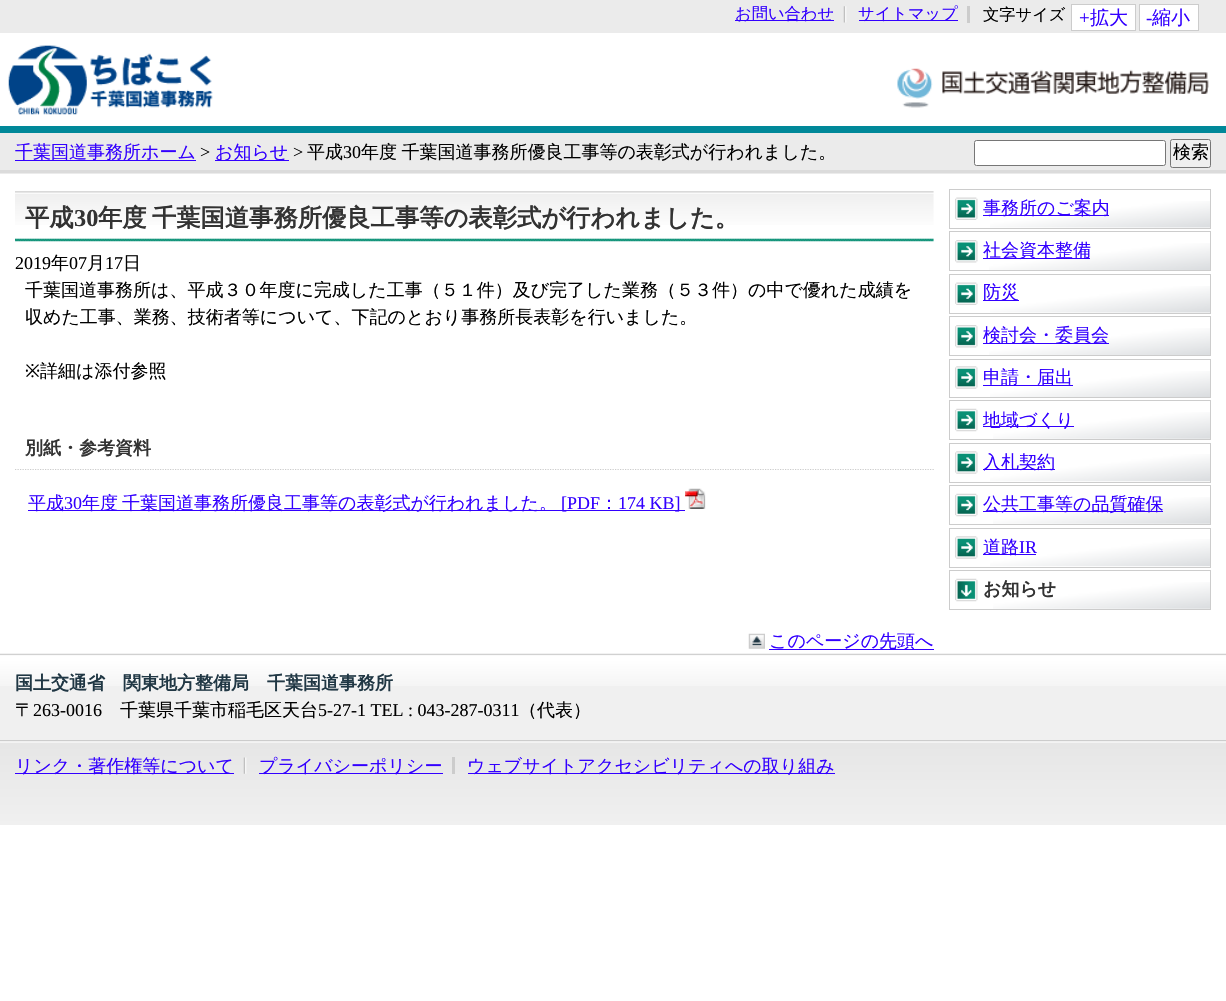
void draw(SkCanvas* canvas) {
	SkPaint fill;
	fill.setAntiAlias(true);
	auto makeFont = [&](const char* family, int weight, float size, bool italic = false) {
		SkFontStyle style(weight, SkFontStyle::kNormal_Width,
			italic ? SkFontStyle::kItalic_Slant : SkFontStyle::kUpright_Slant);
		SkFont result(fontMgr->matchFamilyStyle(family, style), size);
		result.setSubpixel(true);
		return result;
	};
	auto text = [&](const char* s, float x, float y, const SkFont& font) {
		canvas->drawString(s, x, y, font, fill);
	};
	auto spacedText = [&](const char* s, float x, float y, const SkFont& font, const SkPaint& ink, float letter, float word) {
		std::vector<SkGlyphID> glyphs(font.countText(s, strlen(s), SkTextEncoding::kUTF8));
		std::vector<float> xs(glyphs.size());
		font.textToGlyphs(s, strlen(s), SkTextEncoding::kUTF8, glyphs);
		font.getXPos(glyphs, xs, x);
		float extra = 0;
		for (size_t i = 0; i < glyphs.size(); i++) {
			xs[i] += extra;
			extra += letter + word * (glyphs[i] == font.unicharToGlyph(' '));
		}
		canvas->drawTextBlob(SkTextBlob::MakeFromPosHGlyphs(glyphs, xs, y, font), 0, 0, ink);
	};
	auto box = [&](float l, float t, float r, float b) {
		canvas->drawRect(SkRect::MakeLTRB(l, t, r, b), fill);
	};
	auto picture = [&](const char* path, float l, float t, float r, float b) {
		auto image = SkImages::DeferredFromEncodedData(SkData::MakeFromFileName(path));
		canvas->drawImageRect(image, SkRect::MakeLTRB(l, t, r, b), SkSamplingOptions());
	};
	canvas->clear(0xFFFFFFFF);
	fill.setColor(0xFF008899);
	box(0, 126, 1226, 133);
	fill.setColor(0xFFEBEBEB);
	box(0, 0, 1226, 33);
	picture("image0.png", 843, 6, 847, 23);
	fill.setColor(0xFF3300FF);
	box(735, 20, 834, 21);
	fill.setColor(0xFFCCCCCC);
	box(967, 6, 970, 23);
	fill.setColor(0xFF3300FF);
	box(859, 20, 958, 21);
	fill.setColor(0xFFFFFFFF);
	canvas->drawRect(SkRect::MakeLTRB(1071.5f, 4.5f, 1135.5f, 30.5f), fill);
	fill.setStyle(SkPaint::kStroke_Style);
	fill.setStrokeWidth(1);
	fill.setColor(0xFFCCCCCC);
	canvas->drawRect(SkRect::MakeLTRB(1071.5f, 4.5f, 1135.5f, 30.5f), fill);
	fill.setStyle(SkPaint::kFill_Style);
	fill.setColor(0xFFFFFFFF);
	canvas->drawRect(SkRect::MakeLTRB(1139.5f, 4.5f, 1198.5f, 30.5f), fill);
	fill.setStyle(SkPaint::kStroke_Style);
	fill.setColor(0xFFCCCCCC);
	canvas->drawRect(SkRect::MakeLTRB(1139.5f, 4.5f, 1198.5f, 30.5f), fill);
	picture("image1.png", 8, 45, 213, 115);
	picture("image2.png", 897, 68, 1209, 108);
	fill.setStyle(SkPaint::kFill_Style);
	fill.setColor(0xFFEBEBEB);
	box(0, 133, 1226, 174);
	fill.setColor(0xFFDBDBDB);
	box(0, 170, 1226, 173);
	fill.setColor(0xFF3300FF);
	box(15, 160, 196, 161);
	box(215, 160, 289, 161);
	fill.setColor(0xFFFFFFFF);
	canvas->drawRoundRect(SkRect::MakeLTRB(974.5f, 140.5f, 1165.5f, 165.5f), 2, 2, fill);
	fill.setStyle(SkPaint::kStroke_Style);
	fill.setColor(0xFF767676);
	canvas->drawRoundRect(SkRect::MakeLTRB(974.5f, 140.5f, 1165.5f, 165.5f), 2, 2, fill);
	fill.setStyle(SkPaint::kFill_Style);
	fill.setColor(0xFFEFEFEF);
	canvas->drawRoundRect(SkRect::MakeLTRB(1170.5f, 139.5f, 1210.5f, 167.5f), 2, 2, fill);
	fill.setStyle(SkPaint::kStroke_Style);
	fill.setColor(0xFF767676);
	canvas->drawRoundRect(SkRect::MakeLTRB(1170.5f, 139.5f, 1210.5f, 167.5f), 2, 2, fill);
	picture("image3.png", 15, 191, 934, 242);
	fill.setStrokeWidth(1.2f);
	fill.setColor(0xFFCCCCCC);
	fill.setPathEffect(SkDashPathEffect::Make({{1.25f, 1.25f}}, 0));
	canvas->drawPath(SkPathBuilder().moveTo(15, 469.5f).lineTo(934, 469.5f).detach(), fill);
	fill.setPathEffect(nullptr);
	fill.setStyle(SkPaint::kFill_Style);
	fill.setColor(0xFF3300FF);
	box(28, 510, 685, 511);
	picture("image4.png", 685, 488, 706, 509);
	picture("image5.png", 748, 633, 765, 649);
	box(769, 649, 934, 650);
	picture("image6.png", 990, 201, 1210, 228);
	fill.setStyle(SkPaint::kStroke_Style);
	fill.setStrokeWidth(1);
	fill.setColor(0xFFCCCCCC);
	canvas->drawRect(SkRect::MakeLTRB(949.5f, 189.5f, 1210.5f, 228.5f), fill);
	picture("image7.png", 955, 197, 978, 220);
	fill.setStyle(SkPaint::kFill_Style);
	fill.setColor(0xFF3300FF);
	box(983, 215, 1109, 216);
	picture("image8.png", 989, 243, 1210, 270);
	fill.setStyle(SkPaint::kStroke_Style);
	fill.setColor(0xFFCCCCCC);
	canvas->drawRect(SkRect::MakeLTRB(949.5f, 231.5f, 1210.5f, 270.5f), fill);
	picture("image9.png", 955, 240, 978, 263);
	fill.setStyle(SkPaint::kFill_Style);
	fill.setColor(0xFF3300FF);
	box(983, 258, 1090, 259);
	picture("image6.png", 990, 286, 1210, 313);
	fill.setStyle(SkPaint::kStroke_Style);
	fill.setColor(0xFFCCCCCC);
	canvas->drawRect(SkRect::MakeLTRB(949.5f, 274.5f, 1210.5f, 313.5f), fill);
	picture("image10.png", 955, 282, 978, 305);
	fill.setStyle(SkPaint::kFill_Style);
	fill.setColor(0xFF3300FF);
	box(983, 300, 1019, 301);
	picture("image8.png", 989, 328, 1210, 355);
	fill.setStyle(SkPaint::kStroke_Style);
	fill.setColor(0xFFCCCCCC);
	canvas->drawRect(SkRect::MakeLTRB(949.5f, 316.5f, 1210.5f, 355.5f), fill);
	picture("image9.png", 955, 325, 978, 348);
	fill.setStyle(SkPaint::kFill_Style);
	fill.setColor(0xFF3300FF);
	box(983, 343, 1109, 344);
	picture("image11.png", 990, 371, 1210, 397);
	fill.setStyle(SkPaint::kStroke_Style);
	fill.setColor(0xFFCCCCCC);
	canvas->drawRect(SkRect::MakeLTRB(949.5f, 359.5f, 1210.5f, 397.5f), fill);
	picture("image12.png", 955, 366, 978, 389);
	fill.setStyle(SkPaint::kFill_Style);
	fill.setColor(0xFF3300FF);
	box(983, 385, 1073, 386);
	picture("image13.png", 993, 412, 1210, 439);
	fill.setStyle(SkPaint::kStroke_Style);
	fill.setColor(0xFFCCCCCC);
	canvas->drawRect(SkRect::MakeLTRB(949.5f, 400.5f, 1210.5f, 439.5f), fill);
	picture("image14.png", 955, 408, 978, 432);
	fill.setStyle(SkPaint::kFill_Style);
	fill.setColor(0xFF3300FF);
	box(983, 426, 1074, 427);
	picture("image15.png", 990, 454, 1210, 482);
	fill.setStyle(SkPaint::kStroke_Style);
	fill.setColor(0xFFCCCCCC);
	canvas->drawRect(SkRect::MakeLTRB(949.5f, 443.5f, 1210.5f, 482.5f), fill);
	picture("image12.png", 955, 451, 978, 474);
	fill.setStyle(SkPaint::kFill_Style);
	fill.setColor(0xFF3300FF);
	box(983, 469, 1055, 470);
	picture("image13.png", 993, 497, 1210, 524);
	fill.setStyle(SkPaint::kStroke_Style);
	fill.setColor(0xFFCCCCCC);
	canvas->drawRect(SkRect::MakeLTRB(949.5f, 485.5f, 1210.5f, 524.5f), fill);
	picture("image14.png", 955, 493, 978, 517);
	fill.setStyle(SkPaint::kFill_Style);
	fill.setColor(0xFF3300FF);
	box(983, 511, 1163, 512);
	picture("image15.png", 990, 539, 1210, 567);
	fill.setStyle(SkPaint::kStroke_Style);
	fill.setColor(0xFFCCCCCC);
	canvas->drawRect(SkRect::MakeLTRB(949.5f, 528.5f, 1210.5f, 567.5f), fill);
	picture("image12.png", 955, 536, 978, 559);
	fill.setStyle(SkPaint::kFill_Style);
	fill.setColor(0xFF3300FF);
	box(983, 554, 1036, 555);
	picture("image13.png", 993, 582, 1210, 609);
	fill.setStyle(SkPaint::kStroke_Style);
	fill.setColor(0xFFCCCCCC);
	canvas->drawRect(SkRect::MakeLTRB(949.5f, 570.5f, 1210.5f, 609.5f), fill);
	picture("image16.png", 955, 578, 978, 602);
	fill.setStyle(SkPaint::kFill_Style);
	fill.setColor(0xFFF0F0F0);
	box(0, 686, 1226, 740);
	picture("image17.png", 0, 653, 1226, 686);
	picture("image18.png", 0, 740, 1226, 825);
	picture("image19.png", 243, 757, 247, 774);
	fill.setColor(0xFF3300FF);
	box(15, 773, 234, 774);
	fill.setColor(0xFFCCCCCC);
	box(452, 757, 455, 774);
	fill.setColor(0xFF3300FF);
	box(259, 773, 443, 774);
	box(468, 773, 835, 774);
	auto font1 = makeFont("WenQuanYi Zen Hei", 500, 16.25f);
	text("お問い合わせ", 735, 19, font1);
	text("サイトマップ", 858, 19, font1);
	fill.setColor(0xFF000000);
	text("文字サイズ", 983, 20, font1);
	auto font2 = makeFont("Liberation Serif", 400, 19);
	fill.setColor(0xFF3300FF);
	text("+", 1079, 24, font2);
	auto font3 = makeFont("WenQuanYi Zen Hei", 500, 19);
	text("拡大", 1090, 24, font3);
	text("-", 1146, 24, font2);
	text("縮小", 1152, 24, font3);
	auto font4 = makeFont("WenQuanYi Zen Hei", 500, 18);
	text("千葉国道事務所ホーム", 15, 158, font4);
	auto font5 = makeFont("Liberation Serif", 400, 18);
	fill.setColor(0xFF000000);
	text(">", 200, 158, font5);
	fill.setColor(0xFF3300FF);
	text("お知らせ", 215, 158, font4);
	fill.setColor(0xFF000000);
	text(">", 293, 158, font5);
	text("平成", 307, 158, font4);
	text("30", 343, 158, font5);
	spacedText("年度 千葉国道事務所優良工事等の表彰式が行われました。", 361, 158, font4, fill, 0, -1);
	text("検索", 1173, 158, font4);
	auto font6 = makeFont("WenQuanYi Zen Hei", 700, 24.3f);
	fill.setColor(0xFF333333);
	text("平成", 25, 226, font6);
	auto font7 = makeFont("Liberation Serif", 700, 24.3f);
	text("30", 74, 226, font7);
	spacedText("年度 千葉国道事務所優良工事等の表彰式が行われました。", 98, 226, font6, fill, 0, -2);
	fill.setColor(0xFF000000);
	text("2019", 15, 269, font5);
	text("年", 51, 269, font4);
	text("07", 69, 269, font5);
	text("月", 87, 269, font4);
	text("17", 105, 269, font5);
	text("日", 123, 269, font4);
	text("千葉国道事務所は、平成３０年度に完成した工事（５１件）及び完了した業務（５３件）の中で優れた成績を", 25, 296, font4);
	text("収めた工事、業務、技術者等について、下記のとおり事務所長表彰を行いました。", 25, 323, font4);
	auto font8 = makeFont("Noto Sans", 400, 18);
	text("※", 25, 377, font8);
	text("詳細は添付参照", 40, 377, font4);
	auto font9 = makeFont("WenQuanYi Zen Hei", 700, 18);
	fill.setColor(0xFF333333);
	text("別紙・参考資料", 25, 454, font9);
	fill.setColor(0xFF3300FF);
	text("平成", 28, 509, font4);
	text("30", 64, 509, font5);
	text("年度", 82, 509, font4);
	text("千葉国道事務所優良工事等の表彰式が行われました。", 122, 509, font4);
	text("[PDF", 561, 509, font5);
	text("：", 600, 509, font4);
	text("174 KB]", 618, 509, font5);
	text("このページの先頭へ", 769, 647, font4);
	text("事務所のご案内", 983, 214, font4);
	text("社会資本整備", 983, 256, font4);
	text("防災", 983, 298, font4);
	text("検討会・委員会", 983, 341, font4);
	text("申請・届出", 983, 383, font4);
	text("地域づくり", 983, 426, font4);
	text("入札契約", 983, 468, font4);
	text("公共工事等の品質確保", 983, 510, font4);
	text("道路", 983, 553, font4);
	text("IR", 1019, 553, font5);
	fill.setColor(0xFF333333);
	text("お知らせ", 983, 595, font9);
	fill.setColor(0xFF203744);
	text("国土交通省　関東地方整備局　千葉国道事務所", 15, 689, font9);
	fill.setColor(0xFF000000);
	text("〒", 15, 716, font4);
	text("263-0016", 33, 716, font5);
	text("千葉県千葉市稲毛区天台", 120, 716, font4);
	text("5-27-1 TEL : 043-287-0311", 318, 716, font5);
	text("（代表）", 519, 716, font4);
	fill.setColor(0xFF3300FF);
	text("リンク・著作権等について", 15, 772, font4);
	text("プライバシーポリシー", 259, 772, font4);
	text("ウェブサイトアクセシビリティへの取り組み", 467, 772, font4);
}
